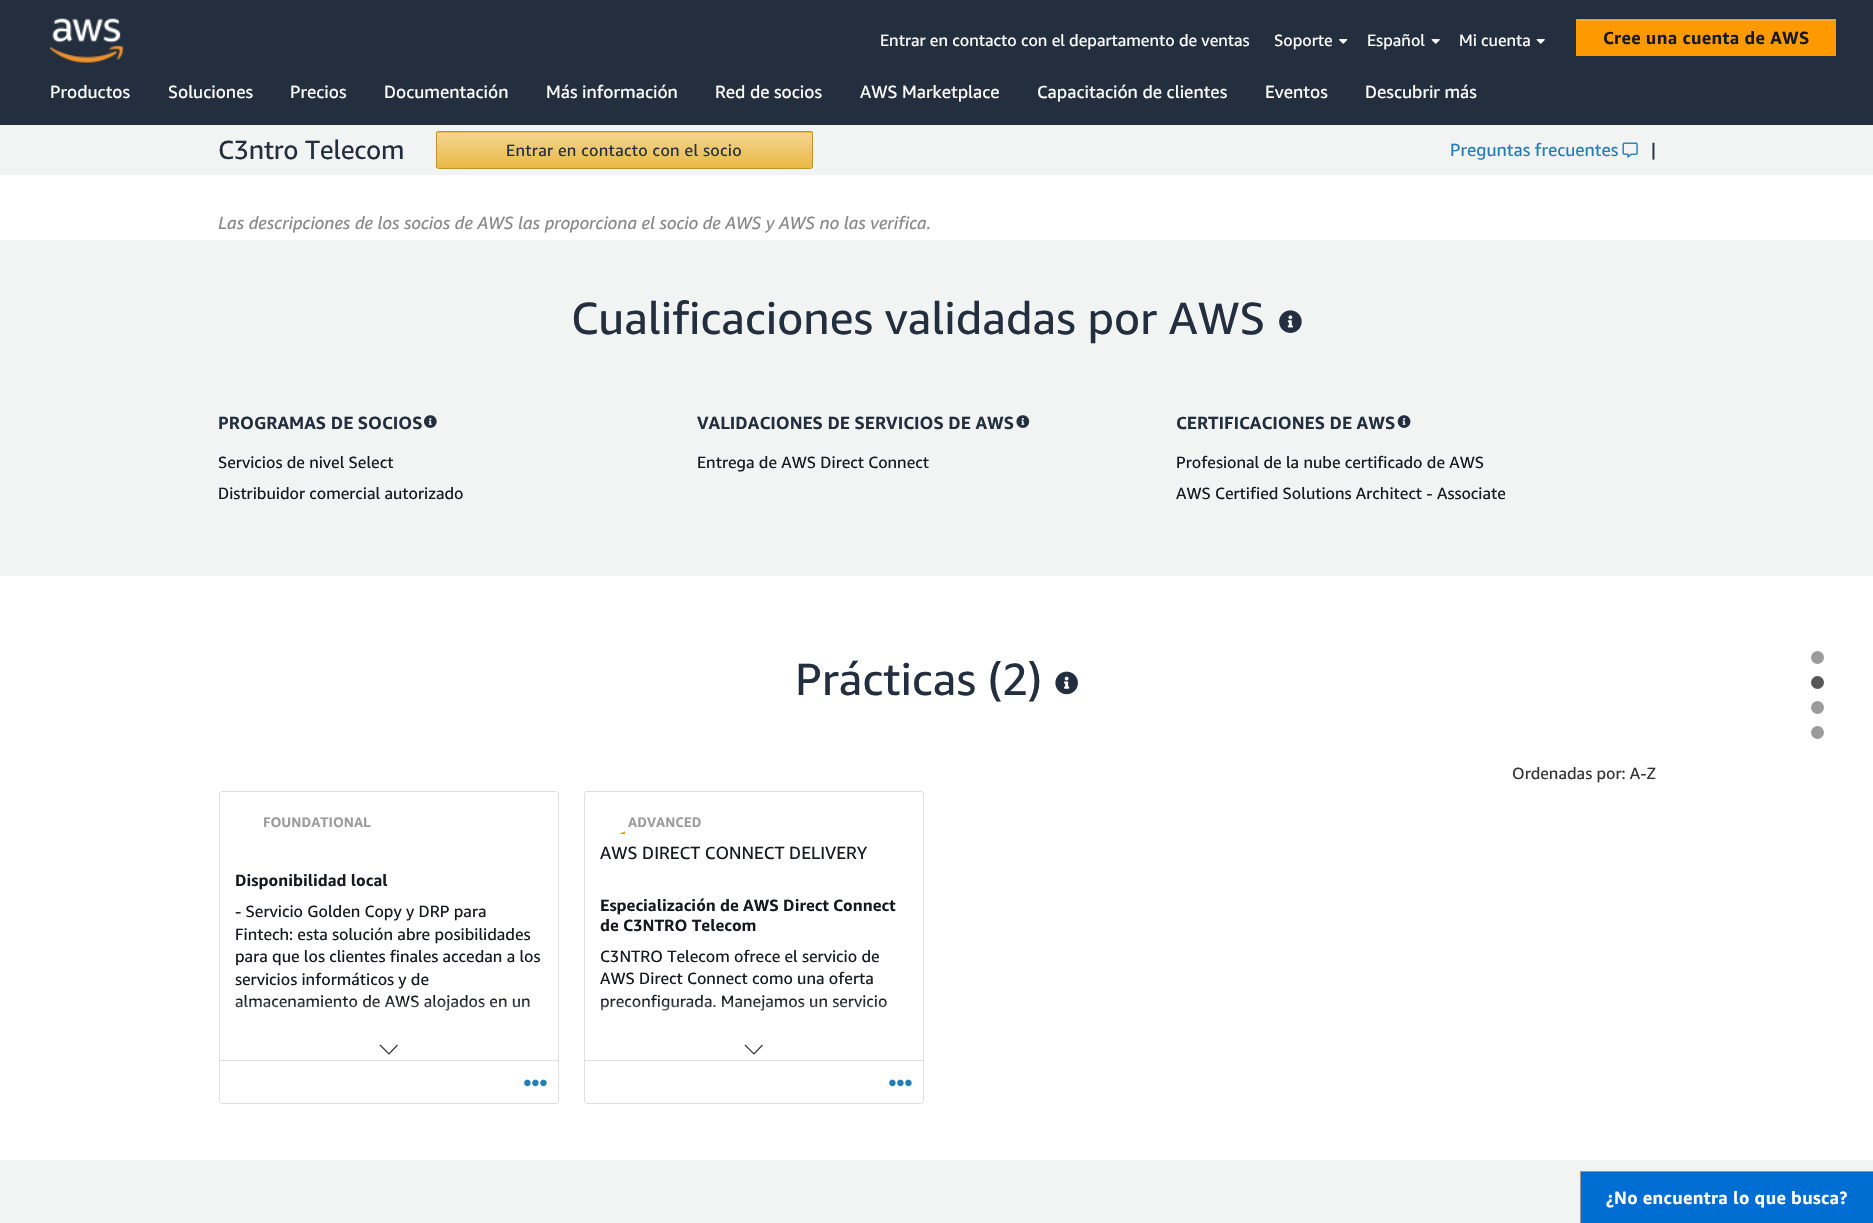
void draw(SkCanvas* canvas) {
	SkPaint fill;
	fill.setAntiAlias(true);
	auto makeFont = [&](const char* family, int weight, float size, bool italic = false) {
		SkFontStyle style(weight, SkFontStyle::kNormal_Width,
			italic ? SkFontStyle::kItalic_Slant : SkFontStyle::kUpright_Slant);
		SkFont result(fontMgr->matchFamilyStyle(family, style), size);
		result.setSubpixel(true);
		return result;
	};
	auto text = [&](const char* s, float x, float y, const SkFont& font) {
		canvas->drawString(s, x, y, font, fill);
	};
	auto spacedText = [&](const char* s, float x, float y, const SkFont& font, const SkPaint& ink, float letter, float word) {
		std::vector<SkGlyphID> glyphs(font.countText(s, strlen(s), SkTextEncoding::kUTF8));
		std::vector<float> xs(glyphs.size());
		font.textToGlyphs(s, strlen(s), SkTextEncoding::kUTF8, glyphs);
		font.getXPos(glyphs, xs, x);
		float extra = 0;
		for (size_t i = 0; i < glyphs.size(); i++) {
			xs[i] += extra;
			extra += letter + word * (glyphs[i] == font.unicharToGlyph(' '));
		}
		canvas->drawTextBlob(SkTextBlob::MakeFromPosHGlyphs(glyphs, xs, y, font), 0, 0, ink);
	};
	auto box = [&](float l, float t, float r, float b) {
		canvas->drawRect(SkRect::MakeLTRB(l, t, r, b), fill);
	};
	auto picture = [&](const char* path, float l, float t, float r, float b) {
		auto image = SkImages::DeferredFromEncodedData(SkData::MakeFromFileName(path));
		canvas->drawImageRect(image, SkRect::MakeLTRB(l, t, r, b), SkSamplingOptions());
	};
	canvas->clear(0xFFFFFFFF);
	fill.setColor(0xFF232F3E);
	box(0, 0, 1873, 125);
	picture("image0.png", 1339, 39, 1348, 44);
	picture("image1.png", 1431, 39, 1440, 44);
	picture("image1.png", 1536, 39, 1545, 44);
	fill.setColor(0xFFFF9900);
	box(1576, 19, 1836, 56);
	fill.setColor(0xFFFFAD33);
	box(1578, 20, 1835, 21);
	picture("image2.png", 50, 18, 124, 63);
	fill.setColor(0xFFF2F3F3);
	box(0, 125, 1873, 175);
	canvas->save();
	canvas->clipPath(SkPathBuilder().moveTo(438.5f, 131).lineTo(810.5f, 131).cubicTo(812, 131, 813, 132, 813, 133.5f).lineTo(813, 166.5f).cubicTo(813, 168, 812, 169, 810.5f, 169).lineTo(438.5f, 169).cubicTo(437, 169, 436, 168, 436, 166.5f).lineTo(436, 133.5f).cubicTo(436, 132, 437, 131, 438.5f, 131).close().detach(), true);
	{
		const SkColor colors[] = {0xFFF3D691, 0xFFEAB946};
		const float stops[] = {0, 1};
		const SkPoint ends[] = {{624, 97}, {624, 133}};
		fill.setShader(SkGradientShader::MakeLinear(ends, colors, stops, 2, SkTileMode::kClamp));
		fill.setAlpha(255);
	}
	box(436, 131, 813, 133);
	canvas->restore();
	{
		const SkColor colors[] = {0xFFF3D691, 0xFFEAB946};
		const float stops[] = {0, 1};
		const SkPoint ends[] = {{624, 132}, {624, 168}};
		fill.setShader(SkGradientShader::MakeLinear(ends, colors, stops, 2, SkTileMode::kClamp));
		fill.setAlpha(255);
	}
	box(436, 133, 813, 168);
	fill.setStyle(SkPaint::kStroke_Style);
	fill.setStrokeWidth(1);
	fill.setShader(nullptr);
	fill.setColor(0xFFBE952C);
	canvas->drawRoundRect(SkRect::MakeLTRB(436.5f, 131.5f, 812.5f, 168.5f), 2, 2, fill);
	picture("image3.png", 1622, 142, 1638, 158);
	fill.setStyle(SkPaint::kFill_Style);
	fill.setColor(0xFFF2F3F3);
	box(0, 240, 1873, 576);
	picture("image4.png", 1279, 310, 1302, 333);
	picture("image5.png", 423, 415, 437, 428);
	picture("image6.png", 1016, 415, 1030, 428);
	picture("image7.png", 1397, 415, 1411, 428);
	picture("image8.png", 1055, 671, 1078, 695);
	fill.setStyle(SkPaint::kStroke_Style);
	fill.setColor(0xFFDFDFDF);
	canvas->drawRoundRect(SkRect::MakeLTRB(219.5f, 791.5f, 558.5f, 1103.5f), 2.5f, 2.5f, fill);
	fill.setStrokeWidth(1.2f);
	fill.setColor(0xFF333333);
	canvas->drawPath(SkPathBuilder().moveTo(380, 1045).lineTo(389, 1054).lineTo(397.5f, 1045).detach(), fill);
	fill.setStyle(SkPaint::kFill_Style);
	fill.setColor(0xFFFFFFFF);
	canvas->drawPath(SkPathBuilder().moveTo(220, 1060).lineTo(558, 1060).lineTo(558, 1101).cubicTo(558, 1102, 557, 1103, 556, 1103).lineTo(222, 1103).cubicTo(221, 1103, 220, 1102, 220, 1101).close().detach(), fill);
	fill.setColor(0xFFDFDFDF);
	box(220, 1060, 558, 1061);
	picture("image9.png", 524, 1079, 547, 1087);
	fill.setStyle(SkPaint::kStroke_Style);
	fill.setStrokeWidth(1);
	canvas->drawRoundRect(SkRect::MakeLTRB(584.5f, 791.5f, 923.5f, 1103.5f), 2.5f, 2.5f, fill);
	canvas->save();
	canvas->clipRect(SkRect::MakeLTRB(600, 809, 625, 834));
	fill.setStyle(SkPaint::kFill_Style);
	fill.setColor(0xFFFF9902);
	canvas->drawPath(SkPathBuilder(SkPathFillType::kEvenOdd).moveTo(676, 809).lineTo(603, 841).cubicTo(591, 918, 616, 967, 676, 989).cubicTo(734, 968, 758, 919, 748, 841).lineTo(676, 809).detach(), fill);
	canvas->restore();
	fill.setStyle(SkPaint::kStroke_Style);
	fill.setStrokeWidth(1.2f);
	fill.setColor(0xFF333333);
	canvas->drawPath(SkPathBuilder().moveTo(745, 1045).lineTo(754, 1054).lineTo(762.5f, 1045).detach(), fill);
	fill.setStyle(SkPaint::kFill_Style);
	fill.setColor(0xFFFFFFFF);
	canvas->drawPath(SkPathBuilder().moveTo(585, 1060).lineTo(923, 1060).lineTo(923, 1101).cubicTo(923, 1102, 922, 1103, 921, 1103).lineTo(587, 1103).cubicTo(586, 1103, 585, 1102, 585, 1101).close().detach(), fill);
	fill.setColor(0xFFDFDFDF);
	box(585, 1060, 923, 1061);
	picture("image9.png", 889, 1079, 912, 1087);
	fill.setColor(0xFF9B9B9B);
	canvas->drawCircle(1817.5f, 657.5f, 6.5f, fill);
	fill.setColor(0xFF575757);
	canvas->drawCircle(1817.5f, 682.5f, 6.5f, fill);
	fill.setColor(0xFF9B9B9B);
	canvas->drawCircle(1817.5f, 707.5f, 6.5f, fill);
	canvas->drawCircle(1817.5f, 732.5f, 6.5f, fill);
	fill.setColor(0xFFF2F3F3);
	box(0, 1160, 1873, 1223);
	fill.setColor(0xFF006DD2);
	canvas->drawRect(SkRect::MakeLTRB(1580.5f, 1171.5f, 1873.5f, 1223.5f), fill);
	fill.setStyle(SkPaint::kStroke_Style);
	fill.setStrokeWidth(1);
	fill.setColor(0xFF979797);
	canvas->drawRect(SkRect::MakeLTRB(1580.5f, 1171.5f, 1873.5f, 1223.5f), fill);
	auto font1 = makeFont("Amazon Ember", 400, 16.25f);
	fill.setStyle(SkPaint::kFill_Style);
	fill.setColor(0xFFFFFFFF);
	text("Entrar en contacto con el departamento de ventas", 880, 46, font1);
	text("Soporte", 1274, 46, font1);
	text("Español", 1367, 46, font1);
	text("Mi cuenta", 1459, 46, font1);
	auto font2 = makeFont("Amazon Ember", 700, 17.5f);
	fill.setColor(0xFF16191F);
	spacedText("Cree una cuenta de AWS", 1603, 44, font2, fill, 0.3f, 0);
	auto font3 = makeFont("Amazon Ember", 400, 17.5f);
	fill.setColor(0xFFFFFFFF);
	text("Productos", 50, 98, font3);
	text("Soluciones", 168, 98, font3);
	text("Precios", 290, 98, font3);
	text("Documentación", 384, 98, font3);
	text("Más información", 546, 98, font3);
	text("Red de socios", 715, 98, font3);
	text("AWS Marketplace", 860, 98, font3);
	text("Capacitación de clientes", 1037, 98, font3);
	text("Eventos", 1265, 98, font3);
	text("Descubrir más", 1365, 98, font3);
	auto font4 = makeFont("Amazon Ember", 400, 26.25f);
	fill.setColor(0xFF232F3E);
	spacedText("C3ntro Telecom", 218, 159, font4, fill, -0.25f, 0);
	spacedText("Entrar en contacto con el socio", 506, 156, font1, fill, 0.3f, 0);
	fill.setColor(0xFF247EB6);
	text("Preguntas frecuentes", 1450, 156, font3);
	fill.setColor(0xFF232F3E);
	text("|", 1651, 156, font3);
	auto font5 = makeFont("Amazon Ember", 400, 17.5f, true);
	fill.setColor(0xFF888888);
	text("Las descripciones de los socios de AWS las proporciona el socio de AWS y AWS no las verifica.", 218, 229, font5);
	auto font6 = makeFont("Amazon Ember", 400, 45);
	fill.setColor(0xFF232F3E);
	text("Cualificaciones validadas por AWS", 571, 334, font6);
	text("PROGRAMAS DE SOCIOS", 218, 429, font2);
	fill.setColor(0xFF16191F);
	text("Servicios de nivel Select", 218, 468, font1);
	text("Distribuidor comercial autorizado", 218, 499, font1);
	fill.setColor(0xFF232F3E);
	text("VALIDACIONES DE SERVICIOS DE AWS", 697, 429, font2);
	fill.setColor(0xFF16191F);
	text("Entrega de AWS Direct Connect", 697, 468, font1);
	fill.setColor(0xFF232F3E);
	text("CERTIFICACIONES DE AWS", 1176, 429, font2);
	fill.setColor(0xFF16191F);
	text("Profesional de la nube certificado de AWS", 1176, 468, font1);
	text("AWS Certified Solutions Architect - Associate", 1176, 499, font1);
	fill.setColor(0xFF232F3E);
	text("Prácticas (2)", 795, 695, font6);
	fill.setColor(0xFF333333);
	text("Ordenadas por: A-Z", 1512, 779, font1);
	auto font7 = makeFont("Amazon Ember", 700, 13.75f);
	fill.setColor(0xFF9B9B9B);
	text("FOUNDATIONAL", 263, 827, font7);
	auto font8 = makeFont("Amazon Ember", 700, 16.25f);
	fill.setColor(0xFF16191F);
	text("Disponibilidad local", 235, 886, font8);
	text("- Servicio Golden Copy y DRP para", 235, 917, font1);
	text("Fintech: esta solución abre posibilidades", 235, 940, font1);
	text("para que los clientes finales accedan a los", 235, 962, font1);
	text("servicios informáticos y de", 235, 985, font1);
	text("almacenamiento de AWS alojados en un", 235, 1007, font1);
	{
		const SkColor colors[] = {0xFFFFFFFF, 0x00FFFFFF};
		const float stops[] = {0.4f, 1};
		const SkPoint ends[] = {{389, 1061}, {389, 999}};
		fill.setShader(SkGradientShader::MakeLinear(ends, colors, stops, 2, SkTileMode::kClamp));
		fill.setAlpha(255);
	}
	box(235, 1000, 530, 1011);
	fill.setShader(nullptr);
	fill.setColor(0xFF9B9B9B);
	text("ADVANCED", 628, 827, font7);
	fill.setColor(0xFF16191F);
	text("AWS DIRECT CONNECT DELIVERY", 600, 859, font3);
	text("Especialización de AWS Direct Connect", 600, 911, font8);
	text("de C3NTRO Telecom", 600, 931, font8);
	text("C3NTRO Telecom ofrece el servicio de", 600, 962, font1);
	text("AWS Direct Connect como una oferta", 600, 984, font1);
	text("preconfigurada. Manejamos un servicio", 600, 1007, font1);
	{
		const SkColor colors[] = {0xFFFFFFFF, 0x00FFFFFF};
		const float stops[] = {0.4f, 1};
		const SkPoint ends[] = {{754, 1061}, {754, 999}};
		fill.setShader(SkGradientShader::MakeLinear(ends, colors, stops, 2, SkTileMode::kClamp));
		fill.setAlpha(255);
	}
	box(601, 1000, 887, 1011);
	fill.setShader(nullptr);
	fill.setColor(0xFFFFFFFF);
	spacedText("¿No encuentra lo que busca?", 1606, 1204, font2, fill, 0.3f, 0);
}
